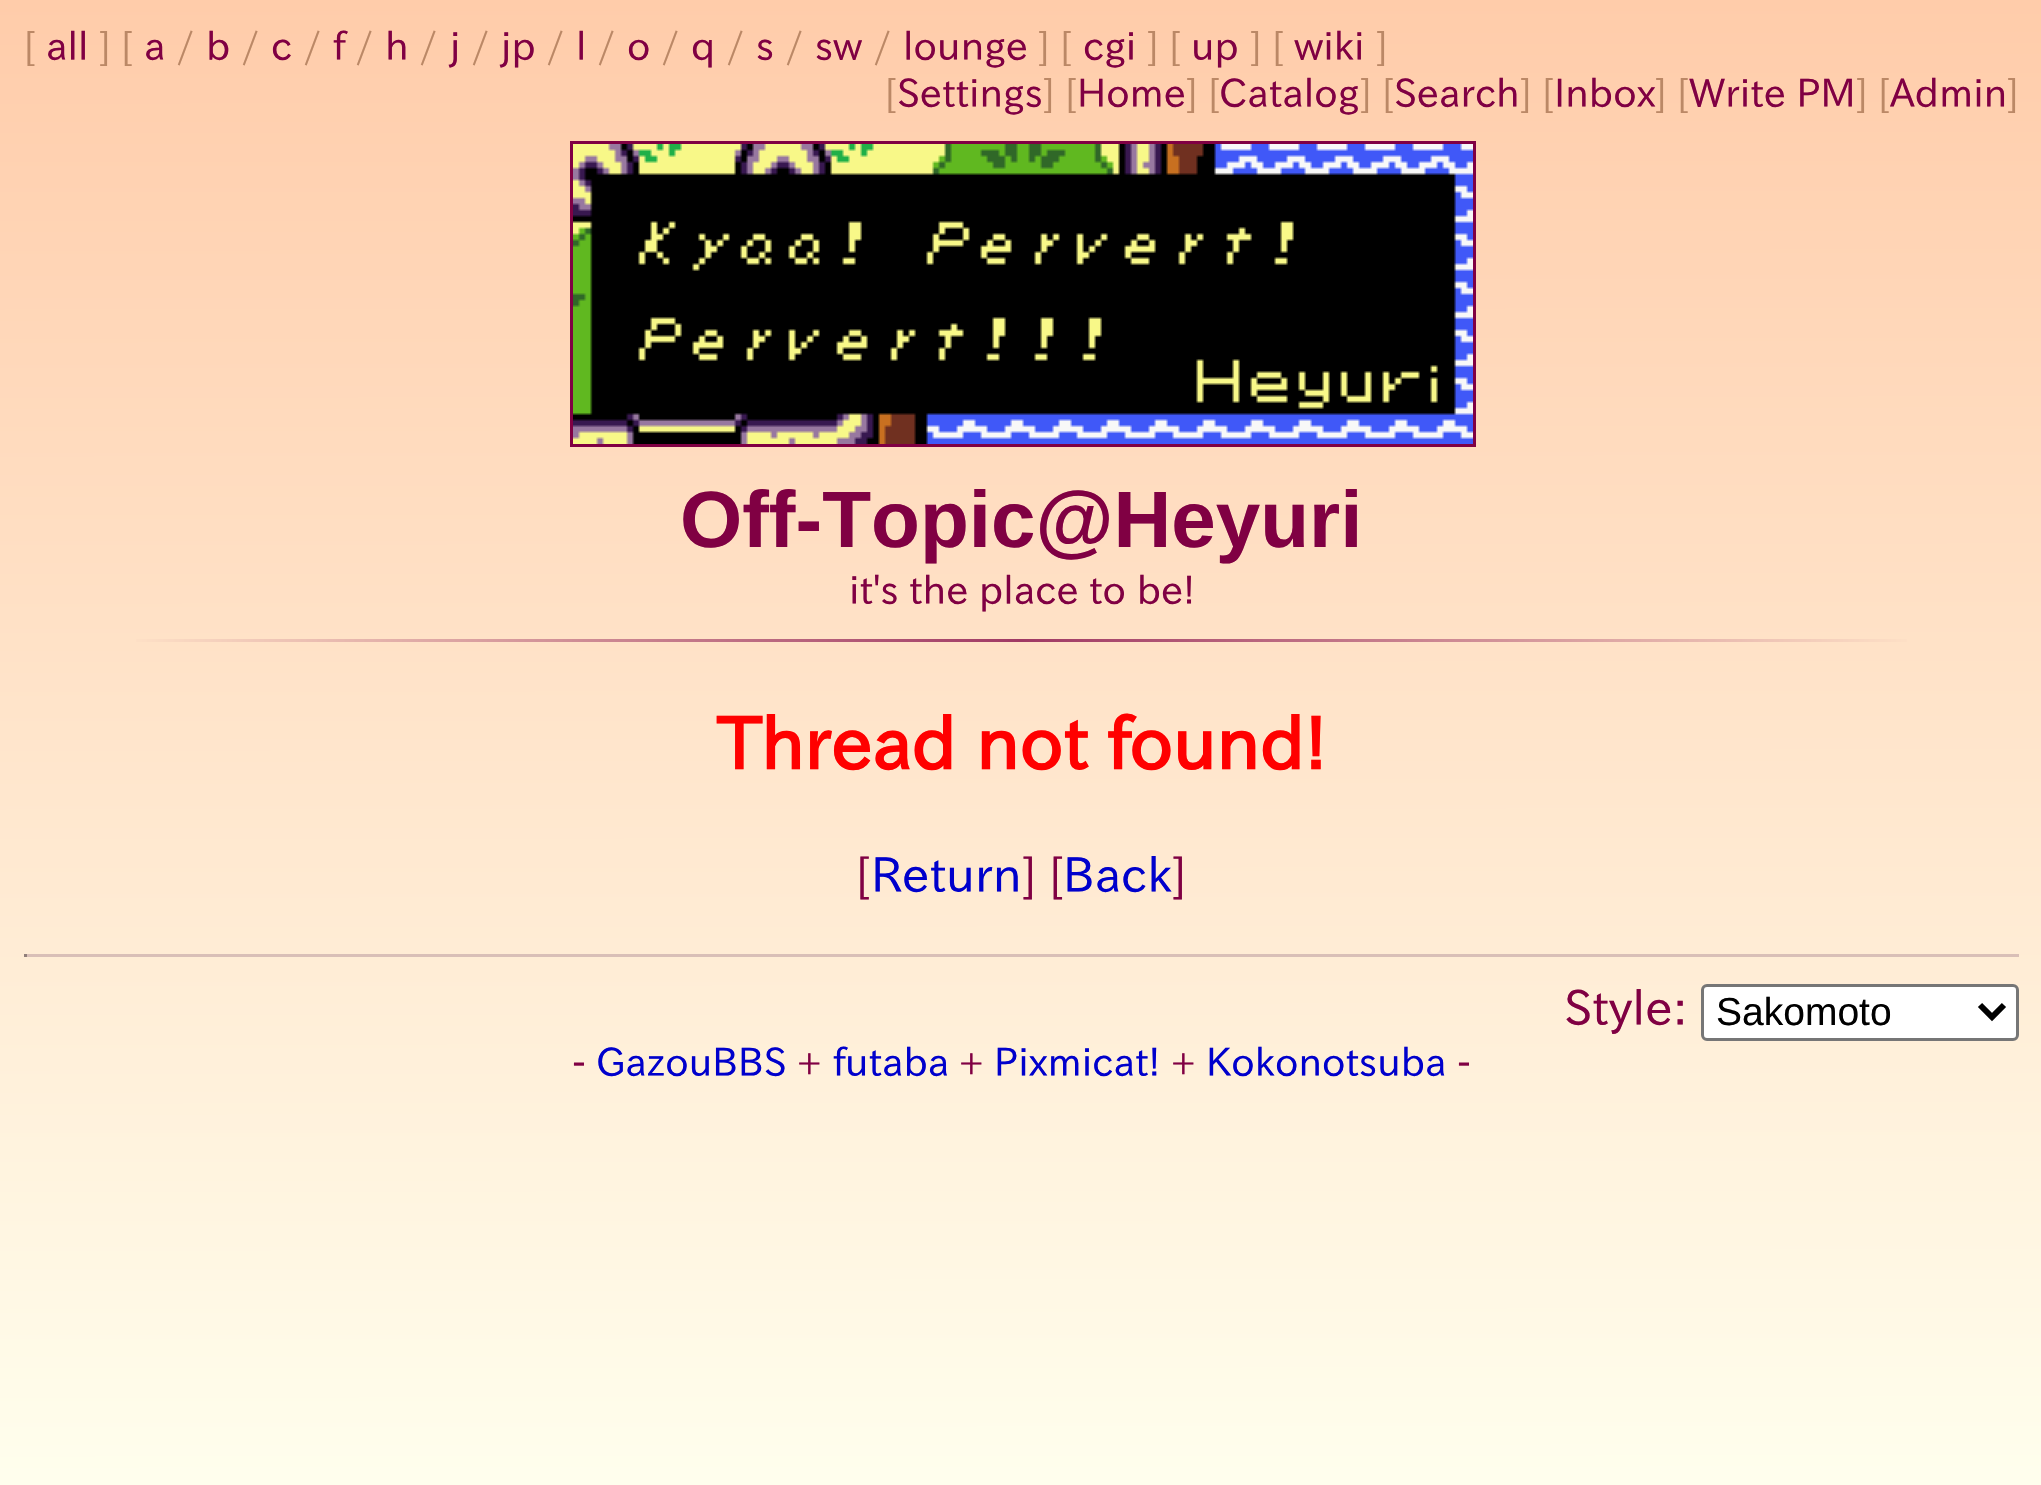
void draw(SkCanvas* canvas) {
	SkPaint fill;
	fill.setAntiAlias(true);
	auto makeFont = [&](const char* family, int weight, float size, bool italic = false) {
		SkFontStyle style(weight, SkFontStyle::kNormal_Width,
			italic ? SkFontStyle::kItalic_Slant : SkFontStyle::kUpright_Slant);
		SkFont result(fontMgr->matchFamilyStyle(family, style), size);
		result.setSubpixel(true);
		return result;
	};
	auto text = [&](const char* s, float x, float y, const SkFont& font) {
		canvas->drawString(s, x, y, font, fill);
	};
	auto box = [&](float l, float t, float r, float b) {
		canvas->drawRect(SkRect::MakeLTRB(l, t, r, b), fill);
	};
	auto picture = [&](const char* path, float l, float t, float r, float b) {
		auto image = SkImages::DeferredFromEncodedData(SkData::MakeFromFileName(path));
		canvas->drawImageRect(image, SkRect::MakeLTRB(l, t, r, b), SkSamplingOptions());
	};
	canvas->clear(0xFFFFFFFF);
	{
		const SkColor colors[] = {0xFFFFCCAA, 0xFFFFFFEE};
		const float stops[] = {0, 1};
		const SkPoint ends[] = {{1021, 0}, {1022, 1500}};
		fill.setShader(SkGradientShader::MakeLinear(ends, colors, stops, 2, SkTileMode::kClamp));
		fill.setAlpha(255);
	}
	box(0, 0, 2041, 1485);
	fill.setStyle(SkPaint::kStroke_Style);
	fill.setStrokeWidth(3);
	fill.setShader(nullptr);
	fill.setColor(0xFF800043);
	canvas->drawRect(SkRect::MakeLTRB(571.5f, 142.5f, 1474.5f, 445.5f), fill);
	picture("image0.png", 573, 144, 1473, 444);
	fill.setStyle(SkPaint::kFill_Style);
	{
		const SkColor colors[] = {0xFFFFE2C7, 0xFFA03964, 0xFFFFE2C7};
		const float stops[] = {0, 0.5f, 1};
		const SkPoint ends[] = {{123, 641}, {1920, 640}};
		fill.setShader(SkGradientShader::MakeLinear(ends, colors, stops, 3, SkTileMode::kClamp));
		fill.setAlpha(255);
	}
	box(136, 639, 1907, 642);
	fill.setShader(nullptr);
	fill.setColor(0xFFD9BFB7);
	box(24, 954, 2019, 957);
	fill.setColor(0xFF917F7A);
	box(24, 954, 27, 957);
	fill.setColor(0xFFFFFFFF);
	canvas->drawRoundRect(SkRect::MakeLTRB(1702.5f, 985.5f, 2017.5f, 1039.5f), 4.5f, 4.5f, fill);
	fill.setStyle(SkPaint::kStroke_Style);
	fill.setColor(0xFF767676);
	canvas->drawRoundRect(SkRect::MakeLTRB(1702.5f, 985.5f, 2017.5f, 1039.5f), 4.5f, 4.5f, fill);
	fill.setStrokeWidth(6);
	fill.setColor(0xFF000000);
	canvas->drawPath(SkPathBuilder().moveTo(1980, 1005).lineTo(1992, 1017).lineTo(2004, 1005).detach(), fill);
	auto font1 = makeFont("IPAPGothic", 400, 39);
	fill.setStyle(SkPaint::kFill_Style);
	fill.setColor(0xFFBB8866);
	text("[", 24, 60, font1);
	fill.setColor(0xFF800043);
	text("all", 46, 60, font1);
	fill.setColor(0xFFBB8866);
	text("] [", 99, 60, font1);
	fill.setColor(0xFF800043);
	text("a", 144, 60, font1);
	fill.setColor(0xFFBB8866);
	text("/", 176, 60, font1);
	fill.setColor(0xFF800043);
	text("b", 206, 60, font1);
	fill.setColor(0xFFBB8866);
	text("/", 241, 60, font1);
	fill.setColor(0xFF800043);
	text("c", 271, 60, font1);
	fill.setColor(0xFFBB8866);
	text("/", 303, 60, font1);
	fill.setColor(0xFF800043);
	text("f", 333, 60, font1);
	fill.setColor(0xFFBB8866);
	text("/", 355, 60, font1);
	fill.setColor(0xFF800043);
	text("h", 385, 60, font1);
	fill.setColor(0xFFBB8866);
	text("/", 419, 60, font1);
	fill.setColor(0xFF800043);
	text("j", 450, 60, font1);
	fill.setColor(0xFFBB8866);
	text("/", 471, 60, font1);
	fill.setColor(0xFF800043);
	text("jp", 501, 60, font1);
	fill.setColor(0xFFBB8866);
	text("/", 546, 60, font1);
	fill.setColor(0xFF800043);
	text("l", 576, 60, font1);
	fill.setColor(0xFFBB8866);
	text("/", 597, 60, font1);
	fill.setColor(0xFF800043);
	text("o", 627, 60, font1);
	fill.setColor(0xFFBB8866);
	text("/", 661, 60, font1);
	fill.setColor(0xFF800043);
	text("q", 691, 60, font1);
	fill.setColor(0xFFBB8866);
	text("/", 726, 60, font1);
	fill.setColor(0xFF800043);
	text("s", 756, 60, font1);
	fill.setColor(0xFFBB8866);
	text("/", 785, 60, font1);
	fill.setColor(0xFF800043);
	text("sw", 815, 60, font1);
	fill.setColor(0xFFBB8866);
	text("/", 873, 60, font1);
	fill.setColor(0xFF800043);
	text("lounge", 903, 60, font1);
	fill.setColor(0xFFBB8866);
	text("] [", 1038, 60, font1);
	fill.setColor(0xFF800043);
	text("cgi", 1083, 60, font1);
	fill.setColor(0xFFBB8866);
	text("] [", 1147, 60, font1);
	fill.setColor(0xFF800043);
	text("up", 1191, 60, font1);
	fill.setColor(0xFFBB8866);
	text("] [", 1250, 60, font1);
	fill.setColor(0xFF800043);
	text("wiki", 1294, 60, font1);
	fill.setColor(0xFFBB8866);
	text("]", 1376, 60, font1);
	text("[", 885, 107, font1);
	fill.setColor(0xFF800043);
	text("Settings", 897, 107, font1);
	fill.setColor(0xFFBB8866);
	text("] [", 1043, 107, font1);
	fill.setColor(0xFF800043);
	text("Home", 1077, 107, font1);
	fill.setColor(0xFFBB8866);
	text("] [", 1186, 107, font1);
	fill.setColor(0xFF800043);
	text("Catalog", 1219, 107, font1);
	fill.setColor(0xFFBB8866);
	text("] [", 1360, 107, font1);
	fill.setColor(0xFF800043);
	text("Search", 1394, 107, font1);
	fill.setColor(0xFFBB8866);
	text("] [", 1520, 107, font1);
	fill.setColor(0xFF800043);
	text("Inbox", 1554, 107, font1);
	fill.setColor(0xFFBB8866);
	text("] [", 1655, 107, font1);
	fill.setColor(0xFF800043);
	text("Write PM", 1689, 107, font1);
	fill.setColor(0xFFBB8866);
	text("] [", 1856, 107, font1);
	fill.setColor(0xFF800043);
	text("Admin", 1890, 107, font1);
	fill.setColor(0xFFBB8866);
	text("]", 2007, 107, font1);
	auto font2 = makeFont("Liberation Sans", 700, 80);
	fill.setColor(0xFF800043);
	text("Off-Topic@Heyuri", 680, 547, font2);
	text("it's the place to be!", 849, 604, font1);
	auto font3 = makeFont("IPAPGothic", 700, 72);
	fill.setColor(0xFFFF0000);
	text("Thread not found!", 717, 770, font3);
	auto font4 = makeFont("IPAPGothic", 400, 48);
	fill.setColor(0xFF800043);
	text("[", 856, 892, font4);
	fill.setColor(0xFF0000CC);
	text("Return", 871, 892, font4);
	fill.setColor(0xFF800043);
	text("] [", 1022, 892, font4);
	fill.setColor(0xFF0000CC);
	text("Back", 1063, 892, font4);
	fill.setColor(0xFF800043);
	text("]", 1172, 892, font4);
	text("Style:", 1564, 1025, font4);
	auto font5 = makeFont("Liberation Sans", 400, 39);
	fill.setColor(0xFF000000);
	text("Sakomoto", 1716, 1025, font5);
	fill.setColor(0xFF800043);
	text("-", 572, 1076, font1);
	fill.setColor(0xFF0000CC);
	text("GazouBBS", 596, 1076, font1);
	fill.setColor(0xFF800043);
	text("+", 797, 1076, font1);
	fill.setColor(0xFF0000CC);
	text("futaba", 833, 1076, font1);
	fill.setColor(0xFF800043);
	text("+", 959, 1076, font1);
	fill.setColor(0xFF0000CC);
	text("Pixmicat!", 994, 1076, font1);
	fill.setColor(0xFF800043);
	text("+", 1171, 1076, font1);
	fill.setColor(0xFF0000CC);
	text("Kokonotsuba", 1206, 1076, font1);
	fill.setColor(0xFF800043);
	text("-", 1457, 1076, font1);
}
